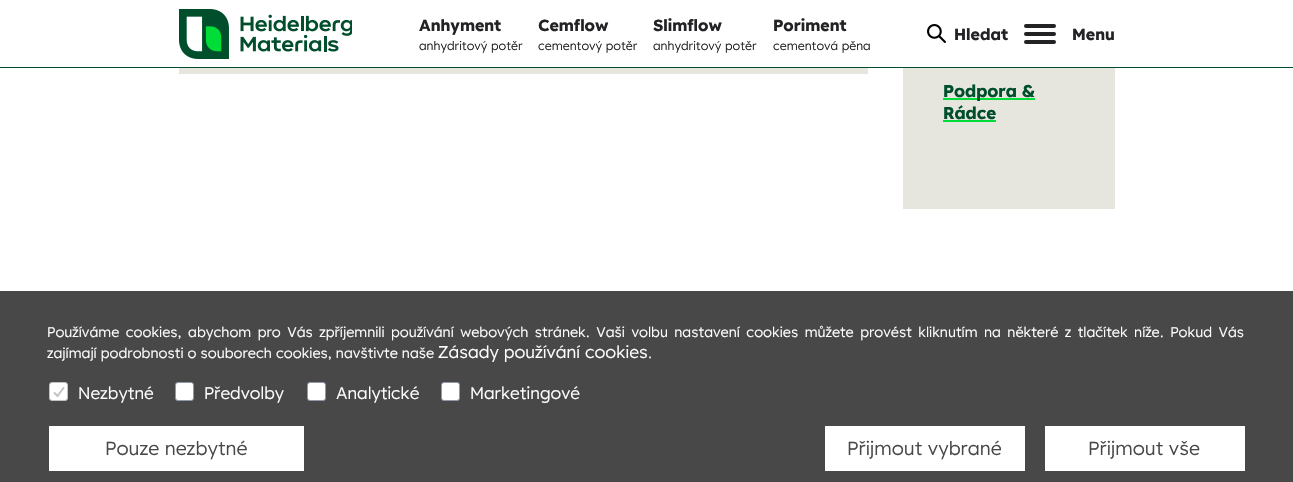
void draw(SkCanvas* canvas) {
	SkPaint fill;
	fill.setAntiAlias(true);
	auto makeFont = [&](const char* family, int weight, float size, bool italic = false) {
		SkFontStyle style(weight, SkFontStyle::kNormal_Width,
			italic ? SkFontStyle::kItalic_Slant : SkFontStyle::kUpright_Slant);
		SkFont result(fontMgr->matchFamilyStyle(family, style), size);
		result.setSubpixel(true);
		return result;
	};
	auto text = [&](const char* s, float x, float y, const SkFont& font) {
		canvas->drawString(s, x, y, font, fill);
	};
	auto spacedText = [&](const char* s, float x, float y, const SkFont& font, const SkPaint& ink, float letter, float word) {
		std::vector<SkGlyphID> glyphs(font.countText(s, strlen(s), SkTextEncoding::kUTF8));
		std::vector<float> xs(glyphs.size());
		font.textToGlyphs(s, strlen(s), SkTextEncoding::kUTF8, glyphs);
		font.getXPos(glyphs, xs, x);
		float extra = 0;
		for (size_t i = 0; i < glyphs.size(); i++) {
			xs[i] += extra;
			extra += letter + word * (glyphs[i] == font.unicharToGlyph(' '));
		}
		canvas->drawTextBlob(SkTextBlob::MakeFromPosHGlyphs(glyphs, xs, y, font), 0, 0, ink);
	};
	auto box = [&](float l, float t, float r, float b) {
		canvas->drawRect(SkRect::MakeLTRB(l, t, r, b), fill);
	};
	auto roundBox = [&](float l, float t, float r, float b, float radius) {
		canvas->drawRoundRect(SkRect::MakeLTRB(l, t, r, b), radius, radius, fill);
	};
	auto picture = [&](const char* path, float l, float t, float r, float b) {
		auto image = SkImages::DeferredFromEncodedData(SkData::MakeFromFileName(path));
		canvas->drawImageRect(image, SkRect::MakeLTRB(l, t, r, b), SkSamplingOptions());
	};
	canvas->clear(0xFFFFFFFF);
	fill.setColor(0xFF004E2B);
	box(0, 67, 1293, 68);
	picture("image0.png", 179, 9, 352, 59);
	picture("image1.png", 927, 24, 946, 43);
	fill.setColor(0xFF232326);
	roundBox(1024, 32, 1056, 36, 2);
	roundBox(1024, 24, 1056, 28, 2);
	roundBox(1024, 40, 1056, 44, 2);
	fill.setColor(0xFFE6E6DF);
	box(179, 68, 868, 74);
	box(903, 68, 1115, 209);
	fill.setColor(0xFF00DD39);
	box(943, 98, 1035, 100);
	box(943, 120, 996, 122);
	fill.setColor(0xFF484848);
	box(0, 291, 1293, 482);
	fill.setColor(0xFFFFFFFF);
	canvas->drawRoundRect(SkRect::MakeLTRB(49.5f, 382.5f, 67.5f, 400.5f), 2.5f, 2.5f, fill);
	fill.setStyle(SkPaint::kStroke_Style);
	fill.setStrokeWidth(1);
	fill.setColor(0xFFC2C2C2);
	canvas->drawRoundRect(SkRect::MakeLTRB(49.5f, 382.5f, 67.5f, 400.5f), 2.5f, 2.5f, fill);
	fill.setStrokeWidth(2);
	fill.setStrokeCap(SkPaint::kRound_Cap);
	fill.setStrokeJoin(SkPaint::kRound_Join);
	canvas->drawPath(SkPathBuilder().moveTo(54.5f, 393).lineTo(57.5f, 396).lineTo(63.5f, 388).detach(), fill);
	fill.setStyle(SkPaint::kFill_Style);
	fill.setColor(0xFFFFFFFF);
	canvas->drawRoundRect(SkRect::MakeLTRB(175.5f, 382.5f, 193.5f, 400.5f), 2.5f, 2.5f, fill);
	fill.setStyle(SkPaint::kStroke_Style);
	fill.setStrokeWidth(1);
	fill.setStrokeCap(SkPaint::kButt_Cap);
	fill.setStrokeJoin(SkPaint::kMiter_Join);
	fill.setColor(0xFF9098A9);
	canvas->drawRoundRect(SkRect::MakeLTRB(175.5f, 382.5f, 193.5f, 400.5f), 2.5f, 2.5f, fill);
	fill.setStyle(SkPaint::kFill_Style);
	fill.setColor(0xFFFFFFFF);
	canvas->drawRoundRect(SkRect::MakeLTRB(307.5f, 382.5f, 325.5f, 400.5f), 2.5f, 2.5f, fill);
	fill.setStyle(SkPaint::kStroke_Style);
	fill.setColor(0xFF9098A9);
	canvas->drawRoundRect(SkRect::MakeLTRB(307.5f, 382.5f, 325.5f, 400.5f), 2.5f, 2.5f, fill);
	fill.setStyle(SkPaint::kFill_Style);
	fill.setColor(0xFFFFFFFF);
	canvas->drawRoundRect(SkRect::MakeLTRB(441.5f, 382.5f, 459.5f, 400.5f), 2.5f, 2.5f, fill);
	fill.setStyle(SkPaint::kStroke_Style);
	fill.setColor(0xFF9098A9);
	canvas->drawRoundRect(SkRect::MakeLTRB(441.5f, 382.5f, 459.5f, 400.5f), 2.5f, 2.5f, fill);
	fill.setStyle(SkPaint::kFill_Style);
	fill.setColor(0xFFFFFFFF);
	canvas->drawRect(SkRect::MakeLTRB(49.5f, 426.5f, 303.5f, 470.5f), fill);
	fill.setStyle(SkPaint::kStroke_Style);
	canvas->drawRect(SkRect::MakeLTRB(49.5f, 426.5f, 303.5f, 470.5f), fill);
	fill.setStyle(SkPaint::kFill_Style);
	canvas->drawRect(SkRect::MakeLTRB(825.5f, 426.5f, 1024.5f, 470.5f), fill);
	fill.setStyle(SkPaint::kStroke_Style);
	canvas->drawRect(SkRect::MakeLTRB(825.5f, 426.5f, 1024.5f, 470.5f), fill);
	fill.setStyle(SkPaint::kFill_Style);
	canvas->drawRect(SkRect::MakeLTRB(1045.5f, 426.5f, 1244.5f, 470.5f), fill);
	fill.setStyle(SkPaint::kStroke_Style);
	canvas->drawRect(SkRect::MakeLTRB(1045.5f, 426.5f, 1244.5f, 470.5f), fill);
	auto font1 = makeFont("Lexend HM", 700, 16);
	fill.setStyle(SkPaint::kFill_Style);
	fill.setColor(0xFF232326);
	text("Anhyment", 419, 31, font1);
	auto font2 = makeFont("Lexend HM", 400, 12);
	text("anhydritový potěr", 419, 50, font2);
	text("Cemflow", 538, 31, font1);
	text("cementový potěr", 538, 50, font2);
	text("Slimflow", 653, 31, font1);
	text("anhydritový potěr", 653, 50, font2);
	text("Poriment", 773, 31, font1);
	text("cementová pěna", 773, 50, font2);
	text("Hledat", 954, 40, font1);
	text("Menu", 1072, 40, font1);
	auto font3 = makeFont("Lexend HM", 700, 17);
	fill.setColor(0xFF004E2B);
	text("Podpora &", 943, 97, font3);
	text("Rádce", 943, 119, font3);
	auto font4 = makeFont("Lexend HM", 400, 14);
	fill.setColor(0xFFFFFFFF);
	spacedText("Používáme cookies, abychom pro Vás zpříjemnili používání webových stránek. Vaši volbu nastavení cookies můžete provést kliknutím na některé z tlačítek níže. Pokud Vás", 47, 337, font4, fill, 0, 2.4f);
	text("zajímají podrobnosti o souborech cookies, navštivte naše", 47, 358, font4);
	auto font5 = makeFont("Lexend HM", 400, 17);
	text("Zásady používání cookies", 438, 358, font5);
	text(".", 648, 358, font4);
	auto font6 = makeFont("Lexend HM", 400, 16.75f);
	text("Nezbytné", 78, 399, font6);
	text("Předvolby", 204, 399, font6);
	text("Analytické", 336, 399, font6);
	text("Marketingové", 470, 399, font6);
	auto font7 = makeFont("Lexend HM", 400, 19);
	fill.setColor(0xFF484848);
	text("Pouze nezbytné", 105, 455, font7);
	text("Přijmout vybrané", 847, 455, font7);
	text("Přijmout vše", 1088, 455, font7);
}
